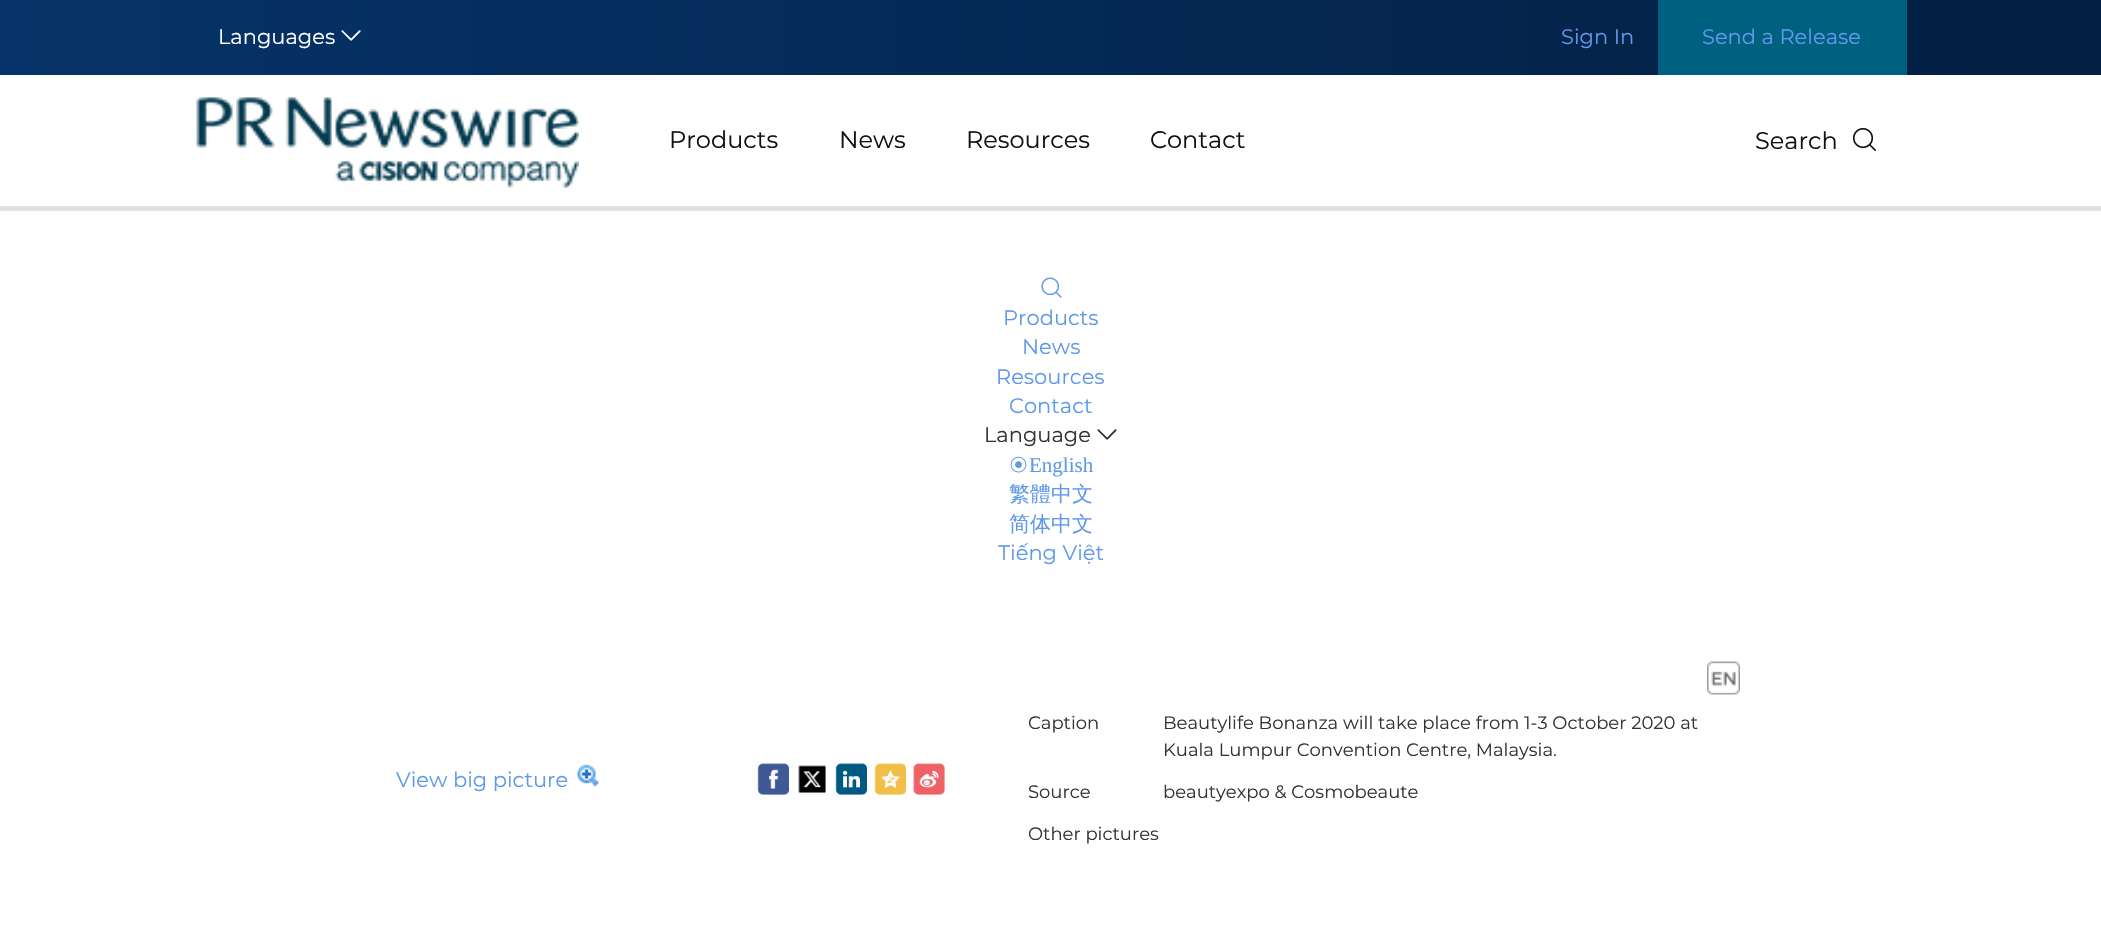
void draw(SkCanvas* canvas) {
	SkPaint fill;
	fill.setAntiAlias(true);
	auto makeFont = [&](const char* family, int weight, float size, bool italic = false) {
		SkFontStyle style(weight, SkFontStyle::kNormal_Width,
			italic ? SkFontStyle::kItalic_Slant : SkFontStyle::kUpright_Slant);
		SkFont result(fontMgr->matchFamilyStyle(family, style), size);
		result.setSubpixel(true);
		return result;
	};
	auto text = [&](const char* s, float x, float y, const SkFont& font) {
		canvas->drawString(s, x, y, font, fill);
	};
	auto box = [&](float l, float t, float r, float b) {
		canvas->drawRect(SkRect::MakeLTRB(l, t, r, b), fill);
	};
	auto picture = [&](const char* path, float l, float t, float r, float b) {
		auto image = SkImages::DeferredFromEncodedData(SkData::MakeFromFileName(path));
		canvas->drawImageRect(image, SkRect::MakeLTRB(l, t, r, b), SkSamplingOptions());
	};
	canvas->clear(0xFFFFFFFF);
	{
		const SkColor colors[] = {0xFF063369, 0xFF031F41};
		const float stops[] = {0, 1};
		const SkPoint ends[] = {{0, 38}, {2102, 37}};
		fill.setShader(SkGradientShader::MakeLinear(ends, colors, stops, 2, SkTileMode::kClamp));
		fill.setAlpha(255);
	}
	box(0, 0, 2101, 75);
	picture("image0.png", 341, 30, 361, 41);
	fill.setShader(nullptr);
	fill.setColor(0xFF00607F);
	box(1658, 0, 1907, 75);
	fill.setColor(0xFFE1E1E1);
	box(0, 206, 2101, 211);
	picture("image1.png", 196, 97, 579, 188);
	picture("image2.png", 1852, 128, 1876, 151);
	picture("image3.png", 1041, 277, 1062, 298);
	picture("image4.png", 1097, 429, 1117, 440);
	picture("image5.png", 1010, 456, 1027, 473);
	picture("image6.png", 577, 764, 599, 787);
	picture("image7.png", 757, 763, 789, 795);
	picture("image8.png", 798, 765, 827, 794);
	picture("image9.png", 835, 763, 867, 795);
	picture("image10.png", 874, 763, 906, 795);
	picture("image11.png", 913, 763, 945, 795);
	picture("image12.png", 1707, 661, 1740, 695);
	auto font1 = makeFont("Montserrat", 400, 21);
	fill.setColor(0xFFFFFFFF);
	text("Languages", 218, 44, font1);
	fill.setColor(0xFF6099E9);
	text("Sign In", 1561, 44, font1);
	text("Send a Release", 1702, 44, font1);
	auto font2 = makeFont("Montserrat", 400, 24);
	fill.setColor(0xFF111111);
	text("Products", 669, 148, font2);
	text("News", 839, 148, font2);
	text("Resources", 966, 148, font2);
	text("Contact", 1150, 148, font2);
	text("Search", 1755, 149, font2);
	fill.setColor(0xFF6099E9);
	text("Products", 1003, 325, font1);
	text("News", 1022, 354, font1);
	text("Resources", 996, 384, font1);
	text("Contact", 1009, 413, font1);
	fill.setColor(0xFF333333);
	text("Language", 984, 442, font1);
	auto font3 = makeFont("Liberation Serif", 400, 21);
	fill.setColor(0xFF6099E9);
	text("English", 1029, 472, font3);
	auto font4 = makeFont("WenQuanYi Zen Hei", 500, 21);
	text("繁體中文", 1009, 501, font4);
	text("简体中文", 1009, 531, font4);
	text("Tiếng Việt", 998, 560, font1);
	text("View big picture", 396, 787, font1);
	auto font5 = makeFont("Montserrat", 400, 18);
	fill.setColor(0xFF333333);
	text("Caption", 1028, 729, font5);
	text("Beautylife Bonanza will take place from 1-3 October 2020 at", 1163, 729, font5);
	text("Kuala Lumpur Convention Centre, Malaysia.", 1163, 756, font5);
	text("Source", 1028, 798, font5);
	text("beautyexpo & Cosmobeaute", 1163, 798, font5);
	text("Other pictures", 1028, 840, font5);
}
